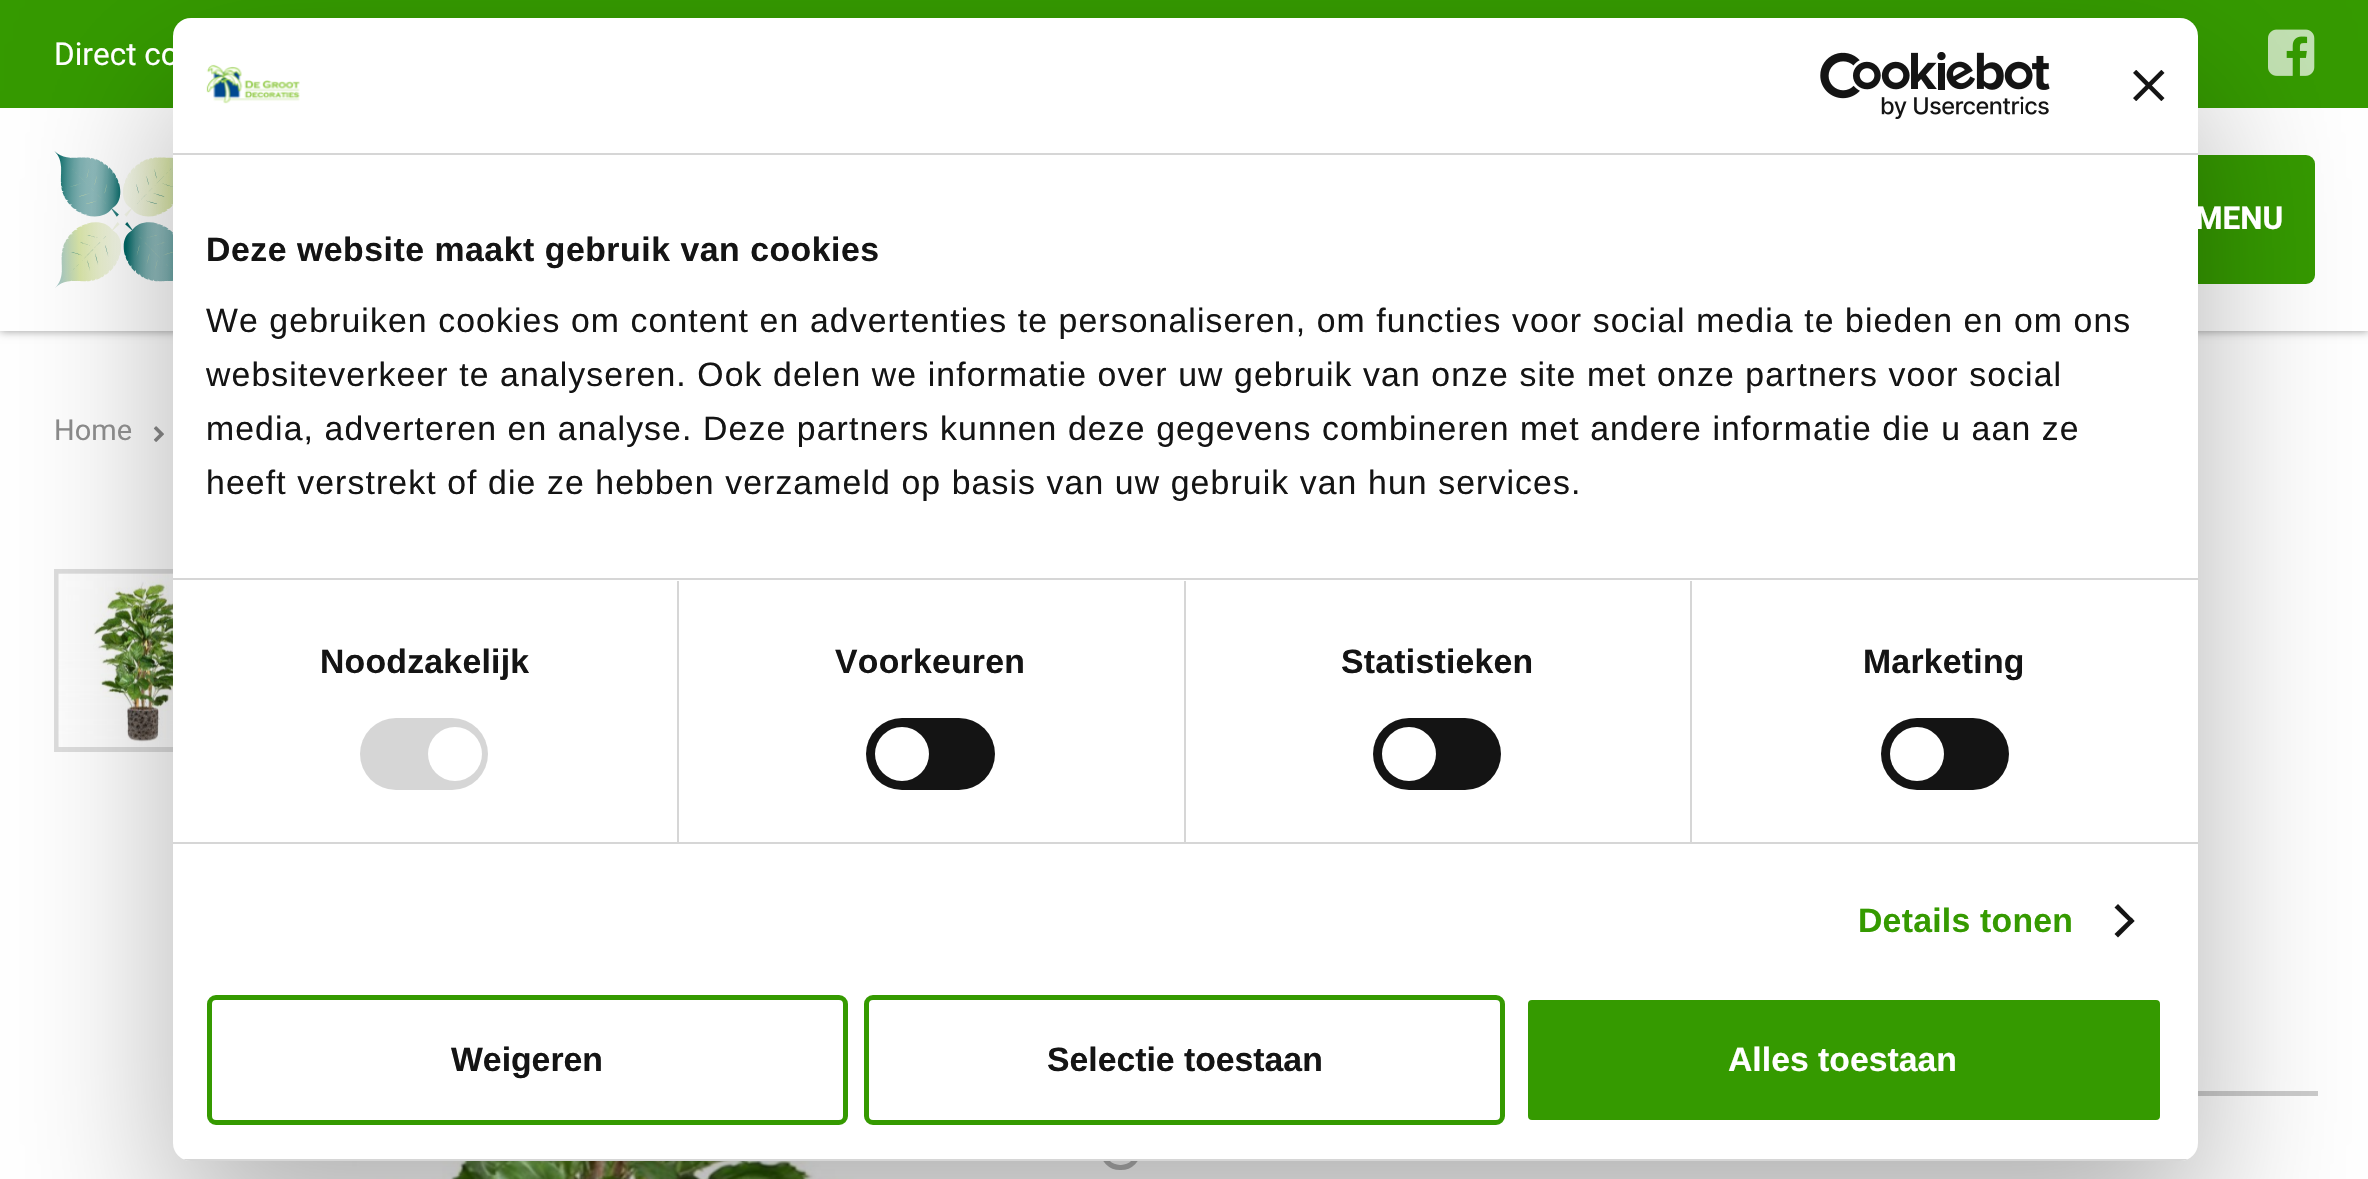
void draw(SkCanvas* canvas) {
	SkPaint fill;
	fill.setAntiAlias(true);
	auto makeFont = [&](const char* family, int weight, float size, bool italic = false) {
		SkFontStyle style(weight, SkFontStyle::kNormal_Width,
			italic ? SkFontStyle::kItalic_Slant : SkFontStyle::kUpright_Slant);
		SkFont result(fontMgr->matchFamilyStyle(family, style), size);
		result.setSubpixel(true);
		return result;
	};
	auto text = [&](const char* s, float x, float y, const SkFont& font) {
		canvas->drawString(s, x, y, font, fill);
	};
	auto spacedText = [&](const char* s, float x, float y, const SkFont& font, const SkPaint& ink, float letter, float word) {
		std::vector<SkGlyphID> glyphs(font.countText(s, strlen(s), SkTextEncoding::kUTF8));
		std::vector<float> xs(glyphs.size());
		font.textToGlyphs(s, strlen(s), SkTextEncoding::kUTF8, glyphs);
		font.getXPos(glyphs, xs, x);
		float extra = 0;
		for (size_t i = 0; i < glyphs.size(); i++) {
			xs[i] += extra;
			extra += letter + word * (glyphs[i] == font.unicharToGlyph(' '));
		}
		canvas->drawTextBlob(SkTextBlob::MakeFromPosHGlyphs(glyphs, xs, y, font), 0, 0, ink);
	};
	auto box = [&](float l, float t, float r, float b) {
		canvas->drawRect(SkRect::MakeLTRB(l, t, r, b), fill);
	};
	auto roundBox = [&](float l, float t, float r, float b, float radius) {
		canvas->drawRoundRect(SkRect::MakeLTRB(l, t, r, b), radius, radius, fill);
	};
	auto picture = [&](const char* path, float l, float t, float r, float b) {
		auto image = SkImages::DeferredFromEncodedData(SkData::MakeFromFileName(path));
		canvas->drawImageRect(image, SkRect::MakeLTRB(l, t, r, b), SkSamplingOptions());
	};
	canvas->clear(0xFFFFFFFF);
	fill.setColor(0x66000000);
	fill.setMaskFilter(SkMaskFilter::MakeBlur(kNormal_SkBlurStyle, 4.5f));
	canvas->drawRect(SkRect::MakeLTRB(0, 108, 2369, 331), fill);
	fill.setMaskFilter(nullptr);
	fill.setColor(0xFF359A00);
	box(0, 0, 2368, 108);
	picture("image0.png", 2268, 29, 2315, 76);
	fill.setColor(0xFFFFFFFF);
	box(0, 108, 2368, 331);
	picture("image1.png", 54, 151, 173, 288);
	fill.setColor(0xFF359A00);
	roundBox(2088, 155, 2315, 284, 9);
	picture("image2.png", 153, 426, 164, 442);
	fill.setStyle(SkPaint::kStroke_Style);
	fill.setStrokeWidth(5);
	fill.setColor(0xFFDDDDDD);
	canvas->drawRect(SkRect::MakeLTRB(56.5f, 571.5f, 233.5f, 749.5f), fill);
	picture("image3.png", 58, 573, 173, 747);
	picture("image4.png", 331, 1161, 877, 1179);
	fill.setStyle(SkPaint::kFill_Style);
	fill.setColor(0xFFCCCCCC);
	box(2198, 1091, 2318, 1096);
	fill.setStyle(SkPaint::kStroke_Style);
	fill.setColor(0xFFB3B3B3);
	canvas->drawRoundRect(SkRect::MakeLTRB(1102.5f, 1132.5f, 1138.5f, 1167.5f), 17.5f, 17.5f, fill);
	fill.setStyle(SkPaint::kFill_Style);
	fill.setColor(0x4D000000);
	fill.setMaskFilter(SkMaskFilter::MakeBlur(kNormal_SkBlurStyle, 76.5f));
	canvas->drawRoundRect(SkRect::MakeLTRB(173, 90, 2198, 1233), 18, 18, fill);
	fill.setMaskFilter(nullptr);
	fill.setColor(0xFFFFFFFF);
	roundBox(173, 18, 2198, 1161, 18);
	fill.setColor(0xFFD6D6D6);
	box(173, 153, 2198, 155);
	picture("image5.png", 206, 64, 300, 104);
	picture("image6.png", 1820, 52, 2050, 119);
	picture("image7.png", 2133, 70, 2165, 101);
	box(173, 578, 2198, 580);
	box(173, 842, 2198, 844);
	box(677, 581, 679, 842);
	roundBox(360, 718, 488, 790, 36);
	fill.setColor(0xFFFFFFFF);
	canvas->drawCircle(455, 754, 27, fill);
	fill.setColor(0xFFD6D6D6);
	box(1184, 581, 1186, 842);
	fill.setColor(0xFF141414);
	roundBox(866, 718, 995, 790, 36);
	fill.setColor(0xFFFFFFFF);
	canvas->drawCircle(902, 754, 27, fill);
	fill.setColor(0xFFD6D6D6);
	box(1690, 581, 1692, 842);
	fill.setColor(0xFF141414);
	roundBox(1373, 718, 1501, 790, 36);
	fill.setColor(0xFFFFFFFF);
	canvas->drawCircle(1409, 754, 27, fill);
	fill.setColor(0xFF141414);
	roundBox(1881, 718, 2009, 790, 36);
	fill.setColor(0xFFFFFFFF);
	canvas->drawCircle(1917, 754, 27, fill);
	fill.setColor(0xFF141414);
	canvas->drawPath(SkPathBuilder().moveTo(2118, 904).lineTo(2134.5f, 921).lineTo(2131.5f, 924).lineTo(2114.5f, 907.5f).close().detach(), fill);
	canvas->drawPath(SkPathBuilder().moveTo(2131.5f, 917.5f).lineTo(2134.5f, 921).lineTo(2118, 937.5f).lineTo(2114.5f, 934).close().detach(), fill);
	canvas->save();
	canvas->clipPath(SkPathBuilder().moveTo(191, 18).lineTo(2180, 18).cubicTo(2190, 18, 2198, 26, 2198, 36).lineTo(2198, 1143).cubicTo(2198, 1153, 2190, 1161, 2180, 1161).lineTo(191, 1161).cubicTo(181, 1161, 173, 1153, 173, 1143).lineTo(173, 36).cubicTo(173, 26, 181, 18, 191, 18).close().detach(), true);
	fill.setColor(0xFFD6D6D6);
	box(183, 1159, 2188, 1161);
	canvas->restore();
	fill.setStyle(SkPaint::kStroke_Style);
	fill.setColor(0xFF359A00);
	canvas->drawRoundRect(SkRect::MakeLTRB(209.5f, 997.5f, 845.5f, 1122.5f), 6.5f, 6.5f, fill);
	canvas->drawRoundRect(SkRect::MakeLTRB(866.5f, 997.5f, 1502.5f, 1122.5f), 6.5f, 6.5f, fill);
	fill.setStyle(SkPaint::kFill_Style);
	canvas->drawRoundRect(SkRect::MakeLTRB(1525.5f, 997.5f, 2162.5f, 1122.5f), 6.5f, 6.5f, fill);
	fill.setStyle(SkPaint::kStroke_Style);
	fill.setColor(0xFFFFFFFF);
	canvas->drawRoundRect(SkRect::MakeLTRB(1525.5f, 997.5f, 2162.5f, 1122.5f), 6.5f, 6.5f, fill);
	auto font1 = makeFont("Roboto", 400, 31.5f);
	fill.setStyle(SkPaint::kFill_Style);
	text("Direct co", 54, 65, font1);
	auto font2 = makeFont("Roboto", 700, 31.5f);
	text("MENU", 2195, 229, font2);
	auto font3 = makeFont("Roboto", 400, 29);
	fill.setColor(0xFF898989);
	text("Home", 54, 440, font3);
	auto font4 = makeFont("Liberation Sans", 700, 33.75f);
	fill.setColor(0xFF141414);
	spacedText("Deze website maakt gebruik van cookies", 206, 261, font4, fill, 0.55f, 0);
	auto font5 = makeFont("Liberation Sans", 400, 33.75f);
	spacedText("We gebruiken cookies om content en advertenties te personaliseren, om functies voor social media te bieden en om ons", 206, 332, font5, fill, 1.12f, 0);
	spacedText("websiteverkeer te analyseren. Ook delen we informatie over uw gebruik van onze site met onze partners voor social", 206, 386, font5, fill, 1.12f, 0);
	spacedText("media, adverteren en analyse. Deze partners kunnen deze gegevens combineren met andere informatie die u aan ze", 206, 440, font5, fill, 1.12f, 0);
	spacedText("heeft verstrekt of die ze hebben verzameld op basis van uw gebruik van hun services.", 206, 494, font5, fill, 1.12f, 0);
	spacedText("Noodzakelijk", 320, 673, font4, fill, 0.25f, 0);
	spacedText("Voorkeuren", 835, 673, font4, fill, 0.25f, 0);
	spacedText("Statistieken", 1341, 673, font4, fill, 0.25f, 0);
	spacedText("Marketing", 1863, 673, font4, fill, 0.25f, 0);
	fill.setColor(0xFF359A00);
	spacedText("Details tonen", 1858, 932, font4, fill, 0.25f, 0);
	fill.setColor(0xFF141414);
	text("Weigeren", 451, 1071, font4);
	text("Selectie toestaan", 1047, 1071, font4);
	fill.setColor(0xFFFFFFFF);
	text("Alles toestaan", 1728, 1071, font4);
}
